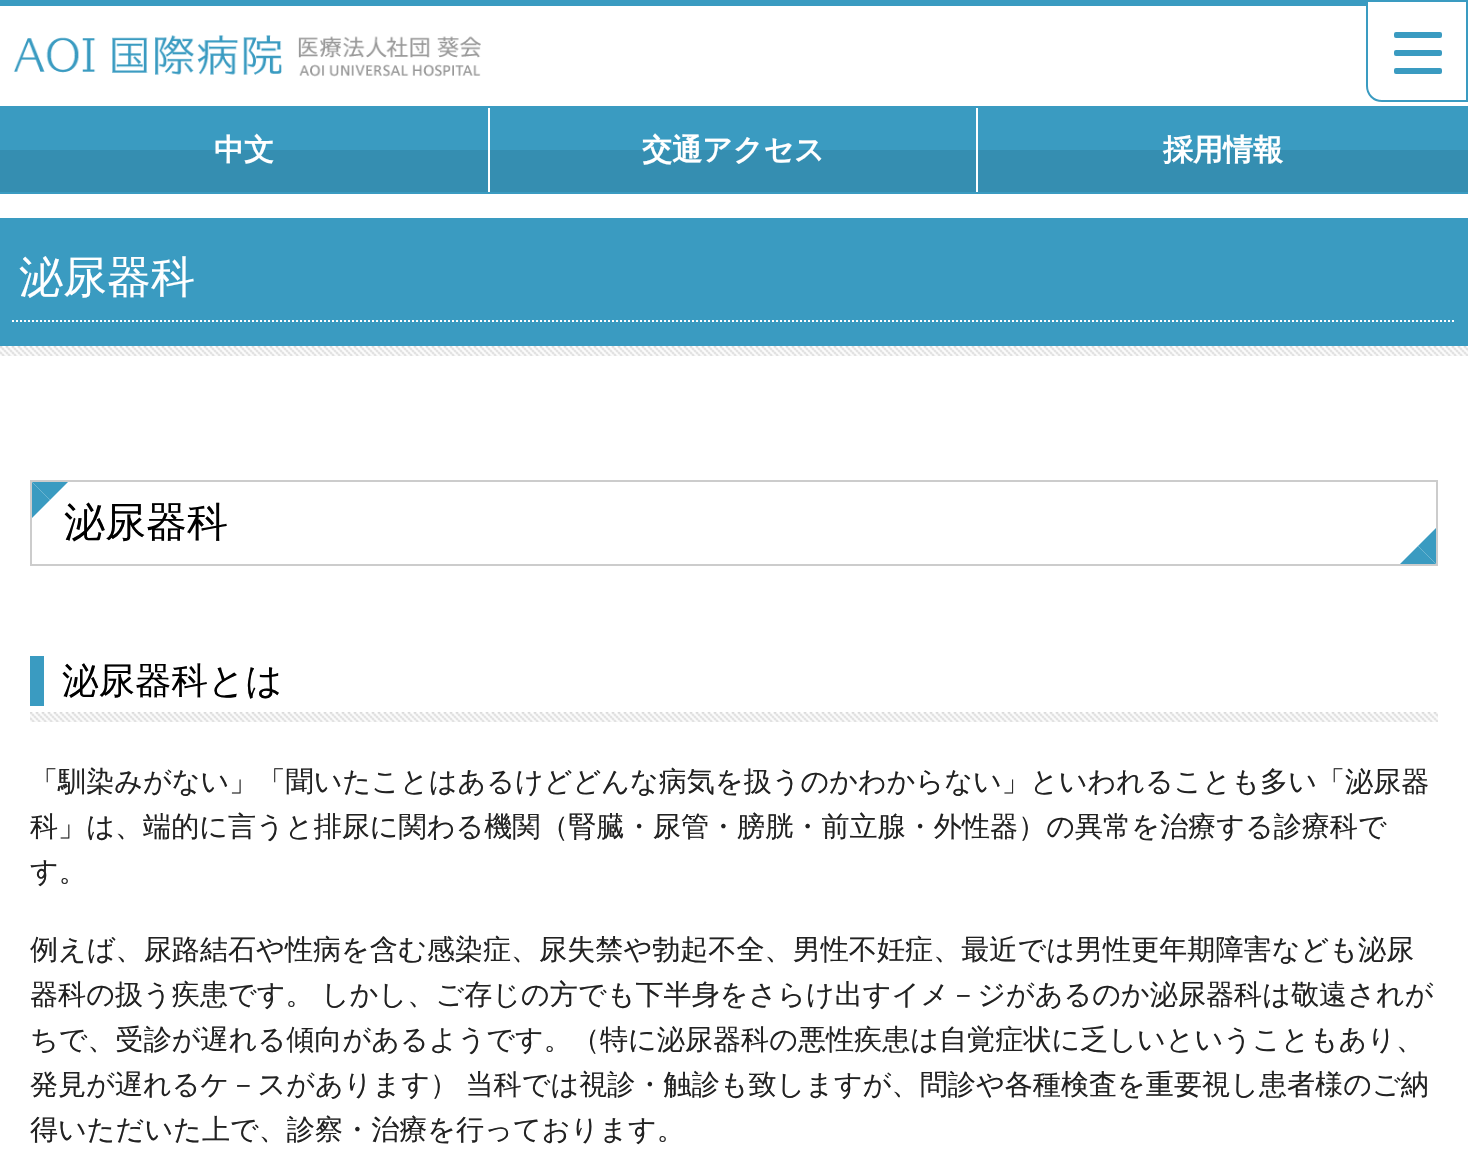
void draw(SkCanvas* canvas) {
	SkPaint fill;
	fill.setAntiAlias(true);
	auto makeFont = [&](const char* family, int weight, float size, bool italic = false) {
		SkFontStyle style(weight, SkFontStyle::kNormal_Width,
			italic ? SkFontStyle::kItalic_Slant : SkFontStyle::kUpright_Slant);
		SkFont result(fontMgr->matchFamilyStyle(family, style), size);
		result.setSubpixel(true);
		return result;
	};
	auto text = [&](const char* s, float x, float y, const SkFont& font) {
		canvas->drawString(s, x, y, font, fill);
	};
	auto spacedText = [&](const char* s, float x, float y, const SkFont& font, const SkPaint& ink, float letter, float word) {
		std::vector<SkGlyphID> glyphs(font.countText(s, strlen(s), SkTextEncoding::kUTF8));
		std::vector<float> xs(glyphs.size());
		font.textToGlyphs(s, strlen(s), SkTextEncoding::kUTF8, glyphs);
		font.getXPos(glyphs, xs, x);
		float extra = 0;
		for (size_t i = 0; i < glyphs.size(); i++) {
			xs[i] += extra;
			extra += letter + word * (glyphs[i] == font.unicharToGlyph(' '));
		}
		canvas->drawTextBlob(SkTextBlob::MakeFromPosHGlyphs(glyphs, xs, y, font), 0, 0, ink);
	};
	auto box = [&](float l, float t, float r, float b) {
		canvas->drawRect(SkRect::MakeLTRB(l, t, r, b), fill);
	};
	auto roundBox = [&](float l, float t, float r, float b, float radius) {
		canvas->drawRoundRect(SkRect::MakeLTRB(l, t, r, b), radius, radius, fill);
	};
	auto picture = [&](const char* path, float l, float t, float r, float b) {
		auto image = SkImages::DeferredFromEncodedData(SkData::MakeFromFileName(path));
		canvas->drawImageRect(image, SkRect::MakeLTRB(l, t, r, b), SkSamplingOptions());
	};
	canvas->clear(0xFFFFFFFF);
	fill.setColor(0xFF3A9BC1);
	box(0, 0, 1366, 6);
	fill.setStyle(SkPaint::kStroke_Style);
	fill.setStrokeWidth(2);
	canvas->drawPath(SkPathBuilder().moveTo(1367, 1).lineTo(1467, 1).lineTo(1467, 101).lineTo(1382, 101).cubicTo(1373.5f, 101, 1367, 94.5f, 1367, 86).close().detach(), fill);
	fill.setStyle(SkPaint::kFill_Style);
	roundBox(1394, 50, 1442, 56, 2);
	roundBox(1394, 32, 1442, 38, 2);
	roundBox(1394, 68, 1442, 74, 2);
	picture("image0.png", 13, 35, 481, 77);
	box(0, 106, 1468, 108);
	box(0, 192, 1468, 194);
	box(0, 108, 488, 150);
	fill.setColor(0xFF358EB1);
	box(0, 150, 488, 192);
	fill.setColor(0xFF3A9BC1);
	box(490, 108, 976, 150);
	fill.setColor(0xFF358EB1);
	box(490, 150, 976, 192);
	fill.setColor(0xFF3A9BC1);
	box(978, 108, 1468, 150);
	fill.setColor(0xFF358EB1);
	box(978, 150, 1468, 192);
	fill.setColor(0xFF3A9BC1);
	box(0, 218, 1468, 346);
	fill.setStyle(SkPaint::kStroke_Style);
	fill.setColor(0xFFFFFFFF);
	fill.setPathEffect(SkDashPathEffect::Make({{2, 2}}, 0));
	canvas->drawPath(SkPathBuilder().moveTo(12, 321).lineTo(1456, 321).detach(), fill);
	fill.setPathEffect(nullptr);
	picture("image1.png", 0, 346, 1468, 356);
	fill.setColor(0xFFCCCCCC);
	canvas->drawRect(SkRect::MakeLTRB(31, 481, 1437, 565), fill);
	fill.setStyle(SkPaint::kFill_Style);
	fill.setColor(0xFF3A9BC1);
	canvas->drawPath(SkPathBuilder().moveTo(32, 482).lineTo(68, 482).lineTo(50, 500).close().detach(), fill);
	canvas->drawPath(SkPathBuilder().moveTo(32, 518).lineTo(32, 482).lineTo(50, 500).close().detach(), fill);
	canvas->drawPath(SkPathBuilder().moveTo(1436, 528).lineTo(1436, 564).lineTo(1418, 546).close().detach(), fill);
	canvas->drawPath(SkPathBuilder().moveTo(1436, 564).lineTo(1400, 564).lineTo(1418, 546).close().detach(), fill);
	box(30, 656, 44, 706);
	picture("image2.png", 30, 712, 1438, 722);
	auto font1 = makeFont("WenQuanYi Zen Hei", 700, 30);
	fill.setColor(0xFFFFFFFF);
	text("中文", 214, 160, font1);
	text("交通アクセス", 642, 160, font1);
	text("採用情報", 1163, 160, font1);
	auto font2 = makeFont("WenQuanYi Zen Hei", 500, 44);
	text("泌尿器科", 19, 292, font2);
	auto font3 = makeFont("WenQuanYi Zen Hei", 500, 41);
	fill.setColor(0xFF000000);
	text("泌尿器科", 64, 536, font3);
	auto font4 = makeFont("WenQuanYi Zen Hei", 500, 36.5f);
	text("泌尿器科とは", 62, 693, font4);
	auto font5 = makeFont("WenQuanYi Zen Hei", 500, 28.1f);
	fill.setColor(0xFF222222);
	text("「馴染みがない」「聞いたことはあるけどどんな病気を扱うのかわからない」といわれることも多い「泌尿器", 30, 791, font5);
	text("科」は、端的に言うと排尿に関わる機関（腎臓・尿管・膀胱・前立腺・外性器）の異常を治療する診療科で", 30, 836, font5);
	text("す。", 30, 881, font5);
	text("例えば、尿路結石や性病を含む感染症、尿失禁や勃起不全、男性不妊症、最近では男性更年期障害なども泌尿", 30, 959, font5);
	spacedText("器科の扱う疾患です。 しかし、ご存じの方でも下半身をさらけ出すイメ－ジがあるのか泌尿器科は敬遠されが", 30, 1004, font5, fill, 0, -1);
	text("ちで、受診が遅れる傾向があるようです。（特に泌尿器科の悪性疾患は自覚症状に乏しいということもあり、", 30, 1049, font5);
	spacedText("発見が遅れるケ－スがあります） 当科では視診・触診も致しますが、問診や各種検査を重要視し患者様のご納", 30, 1094, font5, fill, 0, -1);
	text("得いただいた上で、診察・治療を行っております。", 30, 1139, font5);
}
